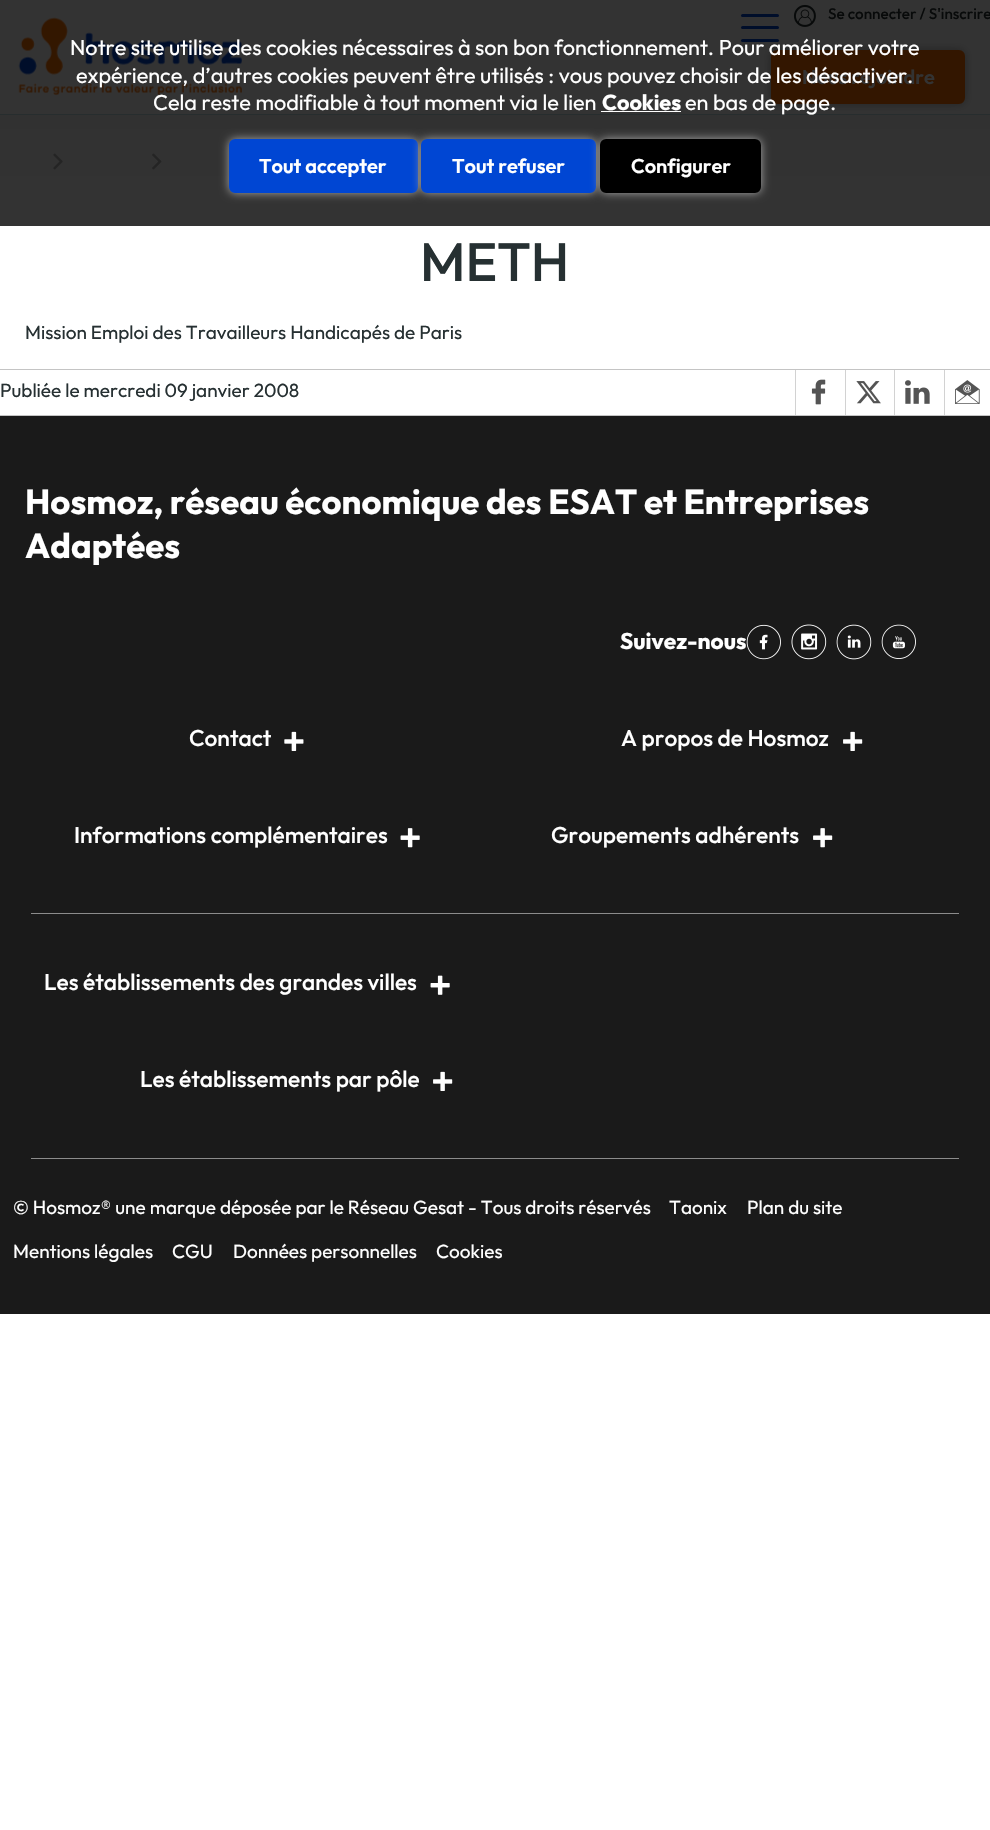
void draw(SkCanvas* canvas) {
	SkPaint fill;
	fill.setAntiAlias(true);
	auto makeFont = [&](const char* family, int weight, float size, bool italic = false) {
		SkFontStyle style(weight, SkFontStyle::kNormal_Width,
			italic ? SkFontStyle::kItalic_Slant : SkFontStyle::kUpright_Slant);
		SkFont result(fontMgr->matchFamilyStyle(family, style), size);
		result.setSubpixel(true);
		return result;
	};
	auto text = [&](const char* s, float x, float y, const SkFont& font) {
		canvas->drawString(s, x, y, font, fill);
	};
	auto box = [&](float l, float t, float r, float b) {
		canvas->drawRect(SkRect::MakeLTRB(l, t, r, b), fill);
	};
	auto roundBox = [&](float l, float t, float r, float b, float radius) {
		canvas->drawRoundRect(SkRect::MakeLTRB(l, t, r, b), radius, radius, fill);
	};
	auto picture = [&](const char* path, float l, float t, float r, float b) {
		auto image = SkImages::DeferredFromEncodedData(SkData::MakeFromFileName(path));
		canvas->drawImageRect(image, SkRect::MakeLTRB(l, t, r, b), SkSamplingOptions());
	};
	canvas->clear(0xFFFFFFFF);
	fill.setColor(0xFF333333);
	box(0, 0, 990, 114);
	fill.setColor(0xFF272D2E);
	box(0, 114, 990, 115);
	fill.setColor(0xFF000E2A);
	roundBox(741, 14, 779, 17, 1.5f);
	roundBox(741, 26, 779, 29, 1.5f);
	roundBox(741, 39, 779, 42, 1.5f);
	picture("image0.png", 793, 4, 816, 27);
	picture("image1.png", 18, 17, 242, 96);
	{
		const SkColor colors[] = {0xFF333333, 0xFF313131};
		const float stops[] = {0.7f, 1};
		const SkPoint ends[] = {{495, 416}, {495, 106}};
		fill.setShader(SkGradientShader::MakeLinear(ends, colors, stops, 2, SkTileMode::kClamp));
		fill.setAlpha(255);
	}
	box(0, 115, 990, 226);
	fill.setShader(nullptr);
	fill.setColor(0xFF222222);
	fill.setMaskFilter(SkMaskFilter::MakeBlur(kNormal_SkBlurStyle, 5));
	canvas->drawRoundRect(SkRect::MakeLTRB(771, 50, 965, 104), 6, 6, fill);
	fill.setMaskFilter(nullptr);
	fill.setColor(0xFF331600);
	canvas->drawRoundRect(SkRect::MakeLTRB(772.5f, 51.5f, 963.5f, 102.5f), 4.5f, 4.5f, fill);
	fill.setStyle(SkPaint::kStroke_Style);
	fill.setStrokeWidth(3);
	canvas->drawRoundRect(SkRect::MakeLTRB(772.5f, 51.5f, 963.5f, 102.5f), 4.5f, 4.5f, fill);
	fill.setStyle(SkPaint::kFill_Style);
	fill.setColor(0xFFFFFFFF);
	box(601, 111, 681, 112);
	fill.setColor(0xFFA8A8A8);
	fill.setMaskFilter(SkMaskFilter::MakeBlur(kNormal_SkBlurStyle, 5));
	canvas->drawRoundRect(SkRect::MakeLTRB(229, 139, 418, 193), 6, 6, fill);
	fill.setMaskFilter(nullptr);
	fill.setColor(0xFF0046D3);
	canvas->drawRoundRect(SkRect::MakeLTRB(230.5f, 140.5f, 416.5f, 191.5f), 4.5f, 4.5f, fill);
	fill.setStyle(SkPaint::kStroke_Style);
	canvas->drawRoundRect(SkRect::MakeLTRB(230.5f, 140.5f, 416.5f, 191.5f), 4.5f, 4.5f, fill);
	fill.setStyle(SkPaint::kFill_Style);
	fill.setColor(0xFFA8A8A8);
	fill.setMaskFilter(SkMaskFilter::MakeBlur(kNormal_SkBlurStyle, 5));
	canvas->drawRoundRect(SkRect::MakeLTRB(421, 139, 596, 193), 6, 6, fill);
	fill.setMaskFilter(nullptr);
	fill.setColor(0xFF0046D3);
	canvas->drawRoundRect(SkRect::MakeLTRB(422.5f, 140.5f, 594.5f, 191.5f), 4.5f, 4.5f, fill);
	fill.setStyle(SkPaint::kStroke_Style);
	canvas->drawRoundRect(SkRect::MakeLTRB(422.5f, 140.5f, 594.5f, 191.5f), 4.5f, 4.5f, fill);
	fill.setStyle(SkPaint::kFill_Style);
	fill.setColor(0xFFA8A8A8);
	fill.setMaskFilter(SkMaskFilter::MakeBlur(kNormal_SkBlurStyle, 5));
	canvas->drawRoundRect(SkRect::MakeLTRB(600, 139, 761, 193), 6, 6, fill);
	fill.setMaskFilter(nullptr);
	fill.setColor(0xFF000000);
	canvas->drawRoundRect(SkRect::MakeLTRB(601.5f, 140.5f, 759.5f, 191.5f), 4.5f, 4.5f, fill);
	fill.setStyle(SkPaint::kStroke_Style);
	canvas->drawRoundRect(SkRect::MakeLTRB(601.5f, 140.5f, 759.5f, 191.5f), 4.5f, 4.5f, fill);
	picture("image2.png", 53, 153, 63, 170);
	picture("image3.png", 152, 153, 162, 170);
	fill.setStyle(SkPaint::kFill_Style);
	fill.setColor(0xFFC4C4C4);
	box(0, 369, 990, 370);
	box(0, 415, 990, 416);
	fill.setColor(0xFFD2D2D2);
	box(795, 370, 796, 415);
	picture("image4.png", 811, 379, 826, 405);
	box(845, 370, 846, 415);
	picture("image5.png", 856, 381, 881, 404);
	box(894, 370, 895, 415);
	picture("image6.png", 905, 380, 930, 404);
	box(944, 370, 945, 415);
	picture("image7.png", 955, 380, 980, 404);
	fill.setColor(0xFF1A1A1A);
	box(0, 416, 990, 1314);
	picture("image9.png", 791, 624, 827, 660);
	picture("image10.png", 836, 624, 872, 660);
	picture("image11.png", 881, 624, 916, 659);
	picture("image12.png", 284, 731, 304, 751);
	picture("image13.png", 843, 731, 863, 751);
	picture("image14.png", 400, 828, 420, 848);
	picture("image15.png", 813, 828, 833, 848);
	fill.setColor(0xFF8C8C8C);
	box(31, 913, 959, 914);
	picture("image16.png", 430, 975, 450, 995);
	picture("image13.png", 433, 1071, 453, 1091);
	box(31, 1158, 959, 1159);
	auto font1 = makeFont("Outfit", 500, 15.25f);
	fill.setColor(0xFF080A0A);
	text("Se connecter / S'inscrire", 828, 19, font1);
	auto font2 = makeFont("Outfit", 600, 20);
	fill.setColor(0xFF333333);
	text("Nous rejoindre", 802, 84, font2);
	auto font3 = makeFont("Outfit", 400, 21.65f);
	fill.setColor(0xFFFFFFFF);
	text("Notre site utilise des cookies nécessaires à son bon fonctionnement. Pour améliorer votre", 70, 55, font3);
	text("expérience, d’autres cookies peuvent être utilisés : vous pouvez choisir de les désactiver.", 76, 83, font3);
	text("Cela reste modifiable à tout moment via le lien", 153, 110, font3);
	auto font4 = makeFont("Outfit", 700, 21.65f);
	text("Cookies", 602, 110, font4);
	text("en bas de page.", 685, 110, font3);
	text("Tout accepter", 259, 173, font2);
	text("Tout refuser", 452, 173, font2);
	text("Configurer", 631, 173, font2);
	auto font5 = makeFont("Outfit", 500, 54);
	fill.setColor(0xFF263032);
	text("METH", 420, 281, font5);
	auto font6 = makeFont("Outfit", 400, 19);
	text("Mission Emploi des Travailleurs Handicapés de Paris", 25, 339, font6);
	text("Publiée le mercredi 09 janvier 2008", 0, 397, font6);
	auto font7 = makeFont("Outfit", 700, 34.75f);
	fill.setColor(0xFFFFFFFF);
	text("Hosmoz, réseau économique des ESAT et Entreprises", 25, 514, font7);
	text("Adaptées", 25, 558, font7);
	auto font8 = makeFont("Outfit", 700, 22.75f);
	text("Suivez-nous", 620, 649, font8);
	picture("image8.png", 746, 624, 781, 660);
	auto font9 = makeFont("Outfit", 500, 22.75f);
	text("Contact", 189, 746, font9);
	text("A propos de Hosmoz", 621, 746, font9);
	text("Informations complémentaires", 74, 843, font9);
	text("Groupements adhérents", 551, 843, font9);
	text("Les établissements des grandes villes", 44, 990, font9);
	text("Les établissements par pôle", 140, 1087, font9);
	text("© Hosmoz® une marque déposée par le Réseau Gesat - Tous droits réservés", 13, 1214, font6);
	text("Taonix", 669, 1214, font6);
	text("Plan du site", 747, 1214, font6);
	text("Mentions légales", 13, 1258, font6);
	text("CGU", 172, 1258, font6);
	text("Données personnelles", 233, 1258, font6);
	text("Cookies", 436, 1258, font6);
}
